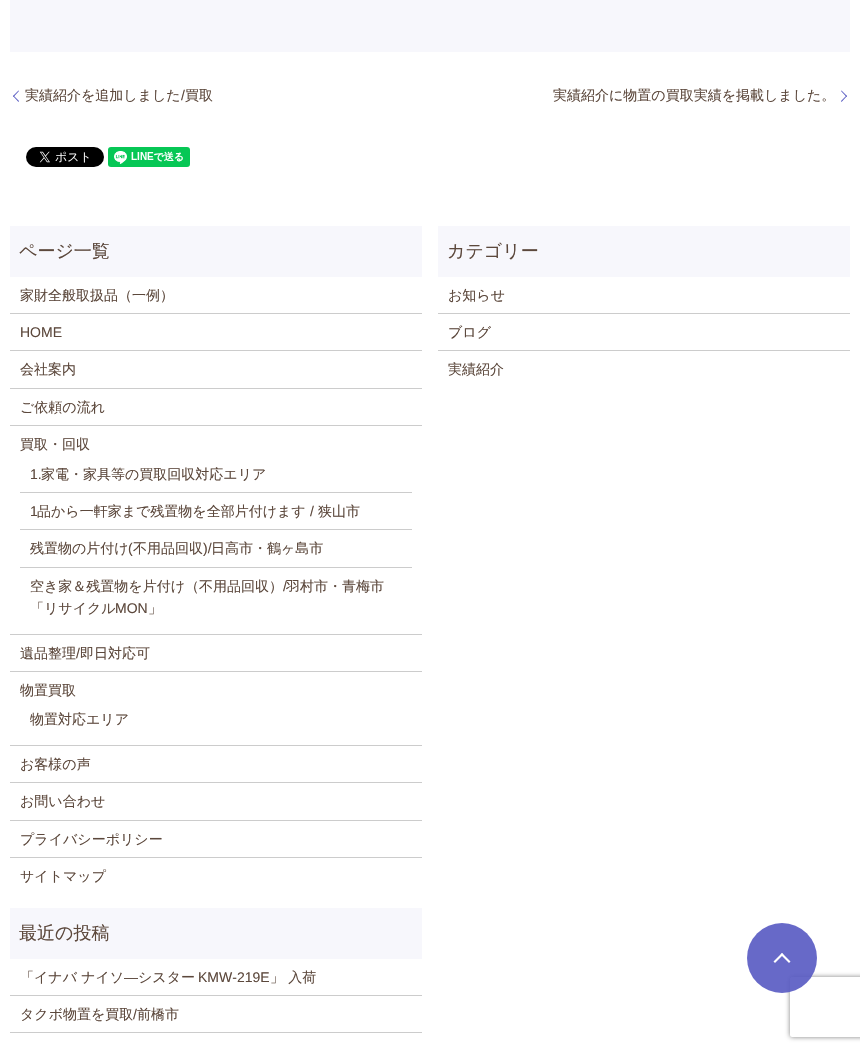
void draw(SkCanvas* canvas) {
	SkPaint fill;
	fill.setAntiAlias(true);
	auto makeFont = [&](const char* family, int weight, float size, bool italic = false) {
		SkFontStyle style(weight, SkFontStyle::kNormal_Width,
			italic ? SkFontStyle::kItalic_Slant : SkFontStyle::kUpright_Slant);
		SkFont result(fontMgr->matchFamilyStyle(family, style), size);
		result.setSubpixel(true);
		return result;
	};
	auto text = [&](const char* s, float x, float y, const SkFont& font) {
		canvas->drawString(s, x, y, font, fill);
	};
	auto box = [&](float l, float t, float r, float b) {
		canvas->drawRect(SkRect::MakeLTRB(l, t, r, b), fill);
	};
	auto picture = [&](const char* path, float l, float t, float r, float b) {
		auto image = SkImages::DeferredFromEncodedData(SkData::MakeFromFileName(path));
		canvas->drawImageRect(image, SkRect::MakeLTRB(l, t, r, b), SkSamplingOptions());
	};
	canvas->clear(0xFFFFFFFF);
	fill.setColor(0xFFF7F7FC);
	box(10, 0, 850, 52);
	fill.setColor(0xFF5659C2);
	canvas->drawPath(SkPathBuilder().moveTo(13, 96).lineTo(18.5f, 90.5f).lineTo(19, 91).lineTo(13.5f, 97).close().detach(), fill);
	canvas->drawPath(SkPathBuilder().moveTo(18.5f, 102).lineTo(13, 96).lineTo(13.5f, 95.5f).lineTo(19, 101).close().detach(), fill);
	canvas->drawPath(SkPathBuilder().moveTo(841.5f, 90.5f).lineTo(847, 96).lineTo(846.5f, 97).lineTo(841, 91).close().detach(), fill);
	canvas->drawPath(SkPathBuilder().moveTo(847, 96).lineTo(841.5f, 102).lineTo(841, 101).lineTo(846.5f, 95.5f).close().detach(), fill);
	picture("image0.png", 26, 147, 104, 167);
	picture("image1.png", 108, 147, 190, 167);
	fill.setColor(0xFFF7F7FC);
	box(10, 226, 422, 277);
	fill.setColor(0xFFCCCCCC);
	box(10, 313, 422, 314);
	box(10, 350, 422, 351);
	box(10, 388, 422, 389);
	box(10, 425, 422, 426);
	box(10, 634, 422, 635);
	box(20, 492, 412, 493);
	box(20, 529, 412, 530);
	box(20, 567, 412, 568);
	box(10, 671, 422, 672);
	box(10, 745, 422, 746);
	box(10, 782, 422, 783);
	box(10, 820, 422, 821);
	box(10, 857, 422, 858);
	fill.setColor(0xFFF7F7FC);
	box(438, 226, 850, 277);
	fill.setColor(0xFFCCCCCC);
	box(438, 313, 850, 314);
	box(438, 350, 850, 351);
	fill.setColor(0xFFF7F7FC);
	box(10, 908, 422, 959);
	fill.setColor(0xFFCCCCCC);
	box(10, 995, 422, 996);
	box(10, 1032, 422, 1033);
	canvas->save();
	canvas->clipPath(SkPathBuilder(SkPathFillType::kEvenOdd).moveTo(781, 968).lineTo(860, 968).lineTo(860, 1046).lineTo(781, 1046).close().moveTo(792, 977).lineTo(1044, 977).cubicTo(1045, 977, 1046, 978, 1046, 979).lineTo(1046, 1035).cubicTo(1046, 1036, 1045, 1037, 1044, 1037).lineTo(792, 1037).cubicTo(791, 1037, 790, 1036, 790, 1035).lineTo(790, 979).cubicTo(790, 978, 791, 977, 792, 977).close().detach(), true);
	fill.setColor(0xFF808080);
	fill.setMaskFilter(SkMaskFilter::MakeBlur(kNormal_SkBlurStyle, 2.5f));
	canvas->drawRoundRect(SkRect::MakeLTRB(790, 977, 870, 1037), 2, 2, fill);
	fill.setMaskFilter(nullptr);
	canvas->restore();
	fill.setColor(0xE65659C2);
	canvas->drawCircle(782, 958, 35, fill);
	fill.setColor(0xFFFFFFFF);
	canvas->drawPath(SkPathBuilder().moveTo(782, 953).lineTo(790.5f, 961.5f).lineTo(789, 963).lineTo(780.5f, 954.5f).close().detach(), fill);
	canvas->drawPath(SkPathBuilder().moveTo(782, 953).lineTo(783.5f, 954.5f).lineTo(775, 963).lineTo(773.5f, 961.5f).close().detach(), fill);
	auto font1 = makeFont("WenQuanYi Zen Hei", 500, 14);
	fill.setColor(0xFF5C483C);
	text("実績紹介を追加しました", 25, 100, font1);
	auto font2 = makeFont("Liberation Sans", 400, 14);
	text("/", 181, 100, font2);
	text("買取", 185, 100, font1);
	text("実績紹介に物置の買取実績を掲載しました。", 553, 100, font1);
	auto font3 = makeFont("WenQuanYi Zen Hei", 500, 18);
	text("ページ一覧", 19, 257, font3);
	text("家財全般取扱品（一例）", 20, 300, font1);
	text("HOME", 20, 337, font2);
	text("会社案内", 20, 374, font1);
	text("ご依頼の流れ", 20, 412, font1);
	text("買取・回収", 20, 449, font1);
	text("1.", 30, 479, font2);
	text("家電・家具等の買取回収対応エリア", 41, 479, font1);
	text("1", 30, 516, font2);
	text("品から一軒家まで残置物を全部片付けます", 37, 516, font1);
	text("/", 310, 516, font2);
	text("狭山市", 318, 516, font1);
	text("残置物の片付け", 30, 553, font1);
	text("(", 128, 553, font2);
	text("不用品回収", 133, 553, font1);
	text(")/", 203, 553, font2);
	text("日高市・鶴ヶ島市", 211, 553, font1);
	text("空き家＆残置物を片付け（不用品回収）", 30, 591, font1);
	text("/", 283, 591, font2);
	text("羽村市・青梅市", 286, 591, font1);
	text("「リサイクル", 30, 613, font1);
	text("MON", 115, 613, font2);
	text("」", 148, 613, font1);
	text("遺品整理", 20, 658, font1);
	text("/", 76, 658, font2);
	text("即日対応可", 80, 658, font1);
	text("物置買取", 20, 695, font1);
	text("物置対応エリア", 30, 724, font1);
	text("お客様の声", 20, 769, font1);
	text("お問い合わせ", 20, 806, font1);
	text("プライバシーポリシー", 20, 844, font1);
	text("サイトマップ", 20, 881, font1);
	text("カテゴリー", 447, 257, font3);
	text("お知らせ", 448, 300, font1);
	text("ブログ", 448, 337, font1);
	text("実績紹介", 448, 374, font1);
	text("最近の投稿", 19, 939, font3);
	text("「イナバ ナイソ", 20, 982, font1);
	text("―", 124, 982, font2);
	text("シスター", 138, 982, font1);
	text("KMW-219E", 198, 982, font2);
	text("」 入荷", 270, 982, font1);
	text("タクボ物置を買取", 20, 1019, font1);
	text("/", 133, 1019, font2);
	text("前橋市", 137, 1019, font1);
}
